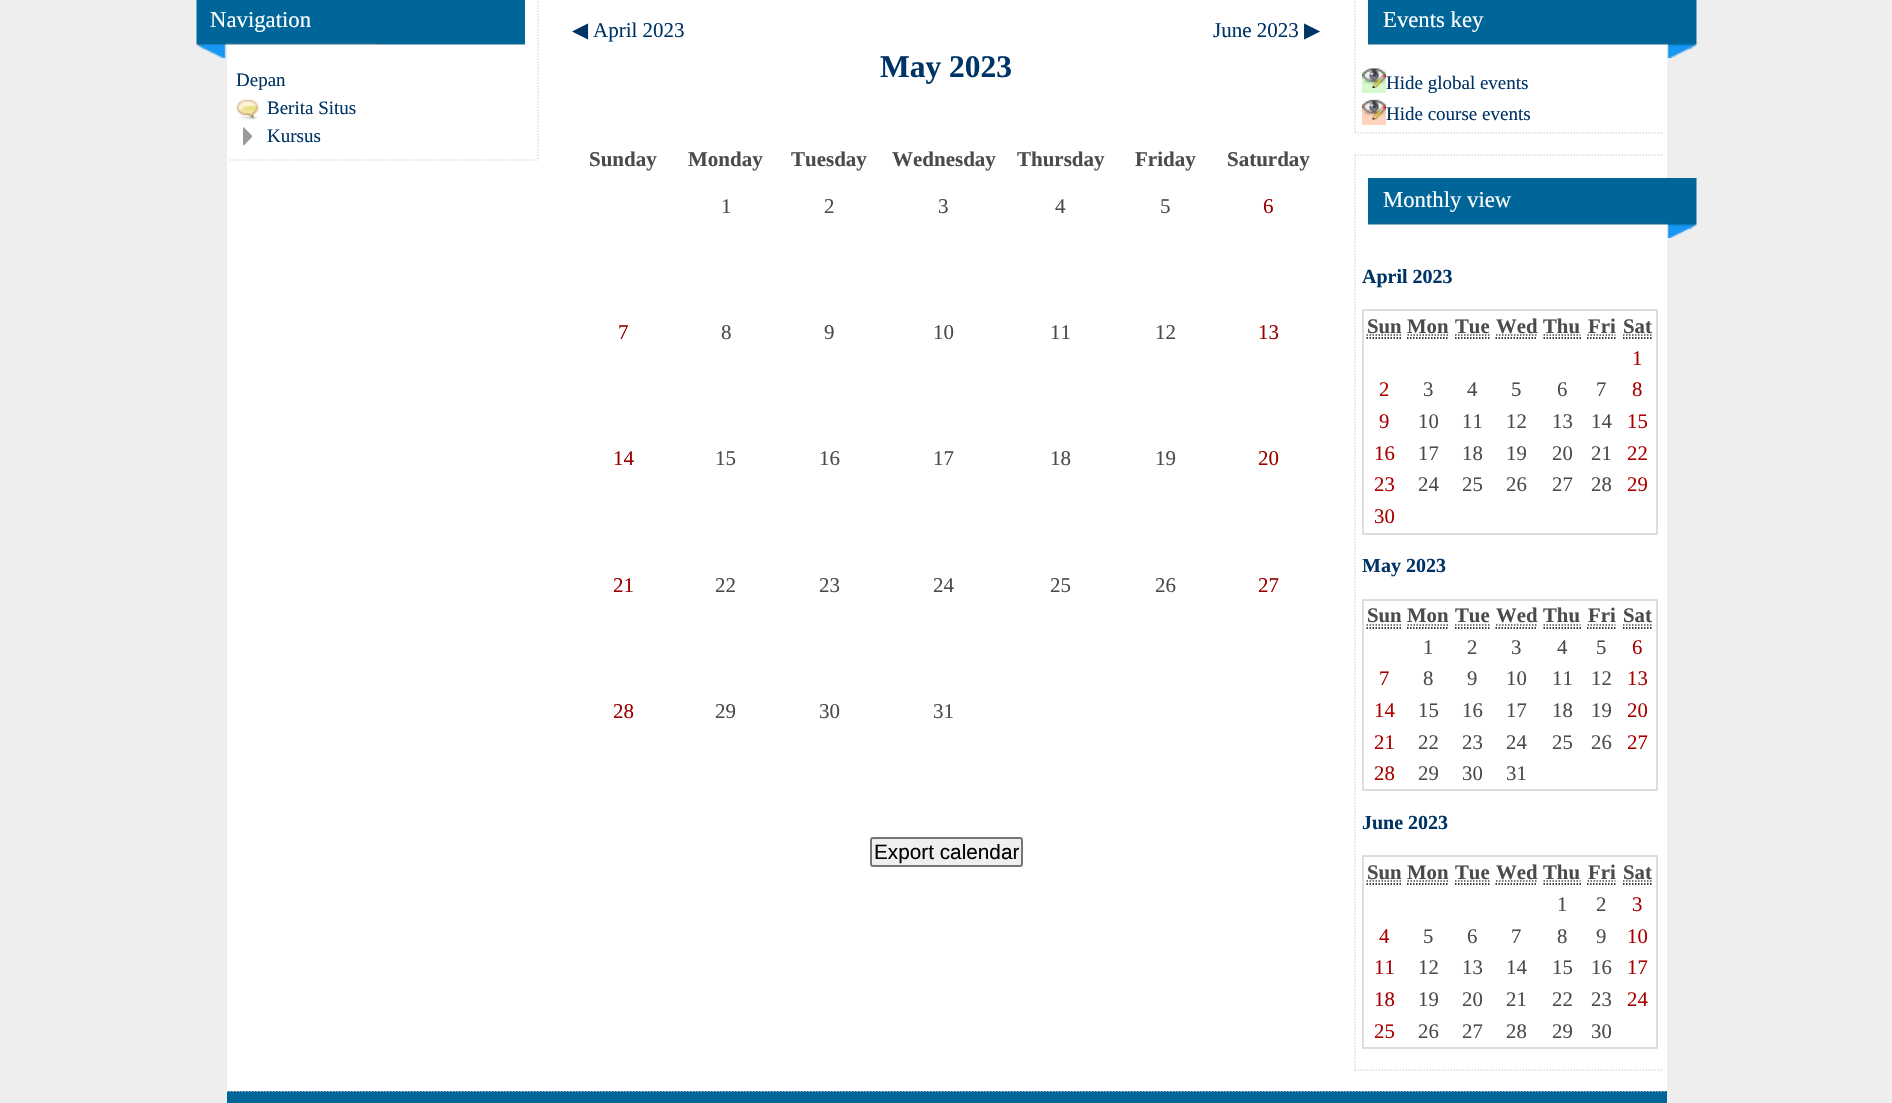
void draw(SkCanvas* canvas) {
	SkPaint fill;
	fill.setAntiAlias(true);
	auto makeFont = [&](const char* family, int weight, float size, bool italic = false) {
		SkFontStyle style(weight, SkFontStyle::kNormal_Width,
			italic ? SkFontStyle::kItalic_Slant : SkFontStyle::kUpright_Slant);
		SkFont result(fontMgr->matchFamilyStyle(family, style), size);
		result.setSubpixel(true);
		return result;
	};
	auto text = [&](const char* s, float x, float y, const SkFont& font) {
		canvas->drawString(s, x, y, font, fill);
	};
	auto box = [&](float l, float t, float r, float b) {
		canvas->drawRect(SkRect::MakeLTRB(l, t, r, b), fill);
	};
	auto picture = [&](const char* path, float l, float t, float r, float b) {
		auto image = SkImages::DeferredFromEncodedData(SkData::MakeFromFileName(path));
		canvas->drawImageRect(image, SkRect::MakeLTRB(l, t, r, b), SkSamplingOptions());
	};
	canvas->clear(0xFFEEEEEE);
	fill.setColor(0xFF006699);
	box(227, 1091, 1667, 1103);
	fill.setStyle(SkPaint::kStroke_Style);
	fill.setStrokeWidth(1.5f);
	fill.setColor(0xFFDDDDDD);
	fill.setPathEffect(SkDashPathEffect::Make({{1.5f, 1.5f}}, 0));
	canvas->drawPath(SkPathBuilder().moveTo(226.5f, 1091).lineTo(1666.5f, 1091).detach(), fill);
	fill.setPathEffect(nullptr);
	fill.setStyle(SkPaint::kFill_Style);
	fill.setColor(0xFFFFFFFF);
	box(227, 0, 1667, 1091);
	fill.setStyle(SkPaint::kStroke_Style);
	fill.setColor(0xFFDDDDDD);
	fill.setPathEffect(SkDashPathEffect::Make({{1.5f, 1.5f}}, 0));
	canvas->drawPath(SkPathBuilder().moveTo(538, -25.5f).lineTo(538, 160.5f).detach(), fill);
	fill.setPathEffect(nullptr);
	fill.setPathEffect(SkDashPathEffect::Make({{1.5f, 1.5f}}, 0));
	canvas->drawPath(SkPathBuilder().moveTo(229.5f, 160).lineTo(538.5f, 160).detach(), fill);
	fill.setPathEffect(nullptr);
	picture("image0.png", 196, 0, 525, 58);
	picture("image1.png", 236, 99, 259, 120);
	picture("image2.png", 243, 127, 252, 146);
	fill.setStyle(SkPaint::kFill_Style);
	fill.setColor(0xFFEFEFEF);
	canvas->drawRoundRect(SkRect::MakeLTRB(871, 838, 1022, 866), 2, 2, fill);
	fill.setStyle(SkPaint::kStroke_Style);
	fill.setStrokeWidth(2);
	fill.setColor(0xFF767676);
	canvas->drawRoundRect(SkRect::MakeLTRB(871, 838, 1022, 866), 2, 2, fill);
	fill.setStrokeWidth(1.5f);
	fill.setColor(0xFFDDDDDD);
	fill.setPathEffect(SkDashPathEffect::Make({{1.5f, 1.5f}}, 0));
	canvas->drawPath(SkPathBuilder().moveTo(1354.5f, 133).lineTo(1663.5f, 133).detach(), fill);
	fill.setPathEffect(nullptr);
	fill.setPathEffect(SkDashPathEffect::Make({{1.5f, 1.5f}}, 0));
	canvas->drawPath(SkPathBuilder().moveTo(1355, -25.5f).lineTo(1355, 133.5f).detach(), fill);
	fill.setPathEffect(nullptr);
	picture("image3.png", 1368, 0, 1697, 58);
	fill.setStyle(SkPaint::kFill_Style);
	fill.setColor(0xFFD6F8CD);
	box(1362, 72, 1386, 93);
	picture("image4.png", 1362, 68, 1386, 88);
	fill.setColor(0xFFFFD3BD);
	box(1362, 104, 1386, 125);
	picture("image5.png", 1362, 99, 1386, 120);
	fill.setStyle(SkPaint::kStroke_Style);
	fill.setColor(0xFFDDDDDD);
	fill.setPathEffect(SkDashPathEffect::Make({{1.5f, 1.5f}}, 0));
	canvas->drawPath(SkPathBuilder().moveTo(1354.5f, 155).lineTo(1663.5f, 155).detach(), fill);
	fill.setPathEffect(nullptr);
	fill.setPathEffect(SkDashPathEffect::Make({{1.5f, 1.5f}}, 0));
	canvas->drawPath(SkPathBuilder().moveTo(1354.5f, 1070).lineTo(1663.5f, 1070).detach(), fill);
	fill.setPathEffect(nullptr);
	fill.setPathEffect(SkDashPathEffect::Make({{1.5f, 1.5f}}, 0));
	canvas->drawPath(SkPathBuilder().moveTo(1355, 154.5f).lineTo(1355, 1071).detach(), fill);
	fill.setPathEffect(nullptr);
	picture("image6.png", 1368, 178, 1697, 238);
	fill.setStyle(SkPaint::kFill_Style);
	box(1362, 309, 1658, 311);
	box(1656, 309, 1658, 534);
	box(1362, 533, 1658, 535);
	box(1362, 309, 1364, 534);
	fill.setStyle(SkPaint::kStroke_Style);
	fill.setColor(0xFF000000);
	fill.setPathEffect(SkDashPathEffect::Make({{1.5f, 1.5f}}, 0));
	canvas->drawPath(SkPathBuilder().moveTo(1366.5f, 338).lineTo(1401, 338).detach(), fill);
	fill.setPathEffect(nullptr);
	fill.setColor(0xFF4B4B4B);
	fill.setPathEffect(SkDashPathEffect::Make({{1.5f, 1.5f}}, 0));
	canvas->drawPath(SkPathBuilder().moveTo(1366.5f, 335).lineTo(1401.5f, 335).detach(), fill);
	fill.setPathEffect(nullptr);
	fill.setColor(0xFF000000);
	fill.setPathEffect(SkDashPathEffect::Make({{1.5f, 1.5f}}, 0));
	canvas->drawPath(SkPathBuilder().moveTo(1407, 338).lineTo(1449, 338).detach(), fill);
	fill.setPathEffect(nullptr);
	fill.setColor(0xFF4B4B4B);
	fill.setPathEffect(SkDashPathEffect::Make({{1.5f, 1.5f}}, 0));
	canvas->drawPath(SkPathBuilder().moveTo(1407.5f, 335).lineTo(1449, 335).detach(), fill);
	fill.setPathEffect(nullptr);
	fill.setColor(0xFF000000);
	fill.setPathEffect(SkDashPathEffect::Make({{1.5f, 1.5f}}, 0));
	canvas->drawPath(SkPathBuilder().moveTo(1455, 338).lineTo(1489.5f, 338).detach(), fill);
	fill.setPathEffect(nullptr);
	fill.setColor(0xFF4B4B4B);
	fill.setPathEffect(SkDashPathEffect::Make({{1.5f, 1.5f}}, 0));
	canvas->drawPath(SkPathBuilder().moveTo(1455, 335).lineTo(1490, 335).detach(), fill);
	fill.setPathEffect(nullptr);
	fill.setColor(0xFF000000);
	fill.setPathEffect(SkDashPathEffect::Make({{1.5f, 1.5f}}, 0));
	canvas->drawPath(SkPathBuilder().moveTo(1495.5f, 338).lineTo(1537.5f, 338).detach(), fill);
	fill.setPathEffect(nullptr);
	fill.setColor(0xFF4B4B4B);
	fill.setPathEffect(SkDashPathEffect::Make({{1.5f, 1.5f}}, 0));
	canvas->drawPath(SkPathBuilder().moveTo(1496, 335).lineTo(1537.5f, 335).detach(), fill);
	fill.setPathEffect(nullptr);
	fill.setColor(0xFF000000);
	fill.setPathEffect(SkDashPathEffect::Make({{1.5f, 1.5f}}, 0));
	canvas->drawPath(SkPathBuilder().moveTo(1543.5f, 338).lineTo(1581, 338).detach(), fill);
	fill.setPathEffect(nullptr);
	fill.setColor(0xFF4B4B4B);
	fill.setPathEffect(SkDashPathEffect::Make({{1.5f, 1.5f}}, 0));
	canvas->drawPath(SkPathBuilder().moveTo(1543.5f, 335).lineTo(1580.5f, 335).detach(), fill);
	fill.setPathEffect(nullptr);
	fill.setColor(0xFF000000);
	fill.setPathEffect(SkDashPathEffect::Make({{1.5f, 1.5f}}, 0));
	canvas->drawPath(SkPathBuilder().moveTo(1587, 338).lineTo(1615.5f, 338).detach(), fill);
	fill.setPathEffect(nullptr);
	fill.setColor(0xFF4B4B4B);
	fill.setPathEffect(SkDashPathEffect::Make({{1.5f, 1.5f}}, 0));
	canvas->drawPath(SkPathBuilder().moveTo(1587.5f, 335).lineTo(1615.5f, 335).detach(), fill);
	fill.setPathEffect(nullptr);
	fill.setColor(0xFF000000);
	fill.setPathEffect(SkDashPathEffect::Make({{1.5f, 1.5f}}, 0));
	canvas->drawPath(SkPathBuilder().moveTo(1623, 338).lineTo(1651.5f, 338).detach(), fill);
	fill.setPathEffect(nullptr);
	fill.setColor(0xFF4B4B4B);
	fill.setPathEffect(SkDashPathEffect::Make({{1.5f, 1.5f}}, 0));
	canvas->drawPath(SkPathBuilder().moveTo(1623, 335).lineTo(1652, 335).detach(), fill);
	fill.setPathEffect(nullptr);
	fill.setStyle(SkPaint::kFill_Style);
	fill.setColor(0xFFDDDDDD);
	box(1362, 599, 1658, 601);
	box(1656, 599, 1658, 791);
	box(1362, 789, 1658, 791);
	box(1362, 599, 1364, 791);
	fill.setStyle(SkPaint::kStroke_Style);
	fill.setColor(0xFF000000);
	fill.setPathEffect(SkDashPathEffect::Make({{1.5f, 1.5f}}, 0));
	canvas->drawPath(SkPathBuilder().moveTo(1366.5f, 628).lineTo(1401, 628).detach(), fill);
	fill.setPathEffect(nullptr);
	fill.setColor(0xFF4B4B4B);
	fill.setPathEffect(SkDashPathEffect::Make({{1.5f, 1.5f}}, 0));
	canvas->drawPath(SkPathBuilder().moveTo(1366.5f, 625).lineTo(1401.5f, 625).detach(), fill);
	fill.setPathEffect(nullptr);
	fill.setColor(0xFF000000);
	fill.setPathEffect(SkDashPathEffect::Make({{1.5f, 1.5f}}, 0));
	canvas->drawPath(SkPathBuilder().moveTo(1407, 628).lineTo(1449, 628).detach(), fill);
	fill.setPathEffect(nullptr);
	fill.setColor(0xFF4B4B4B);
	fill.setPathEffect(SkDashPathEffect::Make({{1.5f, 1.5f}}, 0));
	canvas->drawPath(SkPathBuilder().moveTo(1407.5f, 625).lineTo(1449, 625).detach(), fill);
	fill.setPathEffect(nullptr);
	fill.setColor(0xFF000000);
	fill.setPathEffect(SkDashPathEffect::Make({{1.5f, 1.5f}}, 0));
	canvas->drawPath(SkPathBuilder().moveTo(1455, 628).lineTo(1489.5f, 628).detach(), fill);
	fill.setPathEffect(nullptr);
	fill.setColor(0xFF4B4B4B);
	fill.setPathEffect(SkDashPathEffect::Make({{1.5f, 1.5f}}, 0));
	canvas->drawPath(SkPathBuilder().moveTo(1455, 625).lineTo(1490, 625).detach(), fill);
	fill.setPathEffect(nullptr);
	fill.setColor(0xFF000000);
	fill.setPathEffect(SkDashPathEffect::Make({{1.5f, 1.5f}}, 0));
	canvas->drawPath(SkPathBuilder().moveTo(1495.5f, 628).lineTo(1537.5f, 628).detach(), fill);
	fill.setPathEffect(nullptr);
	fill.setColor(0xFF4B4B4B);
	fill.setPathEffect(SkDashPathEffect::Make({{1.5f, 1.5f}}, 0));
	canvas->drawPath(SkPathBuilder().moveTo(1496, 625).lineTo(1537.5f, 625).detach(), fill);
	fill.setPathEffect(nullptr);
	fill.setColor(0xFF000000);
	fill.setPathEffect(SkDashPathEffect::Make({{1.5f, 1.5f}}, 0));
	canvas->drawPath(SkPathBuilder().moveTo(1543.5f, 628).lineTo(1581, 628).detach(), fill);
	fill.setPathEffect(nullptr);
	fill.setColor(0xFF4B4B4B);
	fill.setPathEffect(SkDashPathEffect::Make({{1.5f, 1.5f}}, 0));
	canvas->drawPath(SkPathBuilder().moveTo(1543.5f, 625).lineTo(1580.5f, 625).detach(), fill);
	fill.setPathEffect(nullptr);
	fill.setColor(0xFF000000);
	fill.setPathEffect(SkDashPathEffect::Make({{1.5f, 1.5f}}, 0));
	canvas->drawPath(SkPathBuilder().moveTo(1587, 628).lineTo(1615.5f, 628).detach(), fill);
	fill.setPathEffect(nullptr);
	fill.setColor(0xFF4B4B4B);
	fill.setPathEffect(SkDashPathEffect::Make({{1.5f, 1.5f}}, 0));
	canvas->drawPath(SkPathBuilder().moveTo(1587.5f, 625).lineTo(1615.5f, 625).detach(), fill);
	fill.setPathEffect(nullptr);
	fill.setColor(0xFF000000);
	fill.setPathEffect(SkDashPathEffect::Make({{1.5f, 1.5f}}, 0));
	canvas->drawPath(SkPathBuilder().moveTo(1623, 628).lineTo(1651.5f, 628).detach(), fill);
	fill.setPathEffect(nullptr);
	fill.setColor(0xFF4B4B4B);
	fill.setPathEffect(SkDashPathEffect::Make({{1.5f, 1.5f}}, 0));
	canvas->drawPath(SkPathBuilder().moveTo(1623, 625).lineTo(1652, 625).detach(), fill);
	fill.setPathEffect(nullptr);
	fill.setStyle(SkPaint::kFill_Style);
	fill.setColor(0xFFDDDDDD);
	box(1362, 855, 1658, 857);
	box(1656, 855, 1658, 1049);
	box(1362, 1047, 1658, 1049);
	box(1362, 855, 1364, 1049);
	fill.setStyle(SkPaint::kStroke_Style);
	fill.setColor(0xFF000000);
	fill.setPathEffect(SkDashPathEffect::Make({{1.5f, 1.5f}}, 0));
	canvas->drawPath(SkPathBuilder().moveTo(1366.5f, 884).lineTo(1401, 884).detach(), fill);
	fill.setPathEffect(nullptr);
	fill.setColor(0xFF4B4B4B);
	fill.setPathEffect(SkDashPathEffect::Make({{1.5f, 1.5f}}, 0));
	canvas->drawPath(SkPathBuilder().moveTo(1366.5f, 881).lineTo(1401.5f, 881).detach(), fill);
	fill.setPathEffect(nullptr);
	fill.setColor(0xFF000000);
	fill.setPathEffect(SkDashPathEffect::Make({{1.5f, 1.5f}}, 0));
	canvas->drawPath(SkPathBuilder().moveTo(1407, 884).lineTo(1449, 884).detach(), fill);
	fill.setPathEffect(nullptr);
	fill.setColor(0xFF4B4B4B);
	fill.setPathEffect(SkDashPathEffect::Make({{1.5f, 1.5f}}, 0));
	canvas->drawPath(SkPathBuilder().moveTo(1407.5f, 881).lineTo(1449, 881).detach(), fill);
	fill.setPathEffect(nullptr);
	fill.setColor(0xFF000000);
	fill.setPathEffect(SkDashPathEffect::Make({{1.5f, 1.5f}}, 0));
	canvas->drawPath(SkPathBuilder().moveTo(1455, 884).lineTo(1489.5f, 884).detach(), fill);
	fill.setPathEffect(nullptr);
	fill.setColor(0xFF4B4B4B);
	fill.setPathEffect(SkDashPathEffect::Make({{1.5f, 1.5f}}, 0));
	canvas->drawPath(SkPathBuilder().moveTo(1455, 881).lineTo(1490, 881).detach(), fill);
	fill.setPathEffect(nullptr);
	fill.setColor(0xFF000000);
	fill.setPathEffect(SkDashPathEffect::Make({{1.5f, 1.5f}}, 0));
	canvas->drawPath(SkPathBuilder().moveTo(1495.5f, 884).lineTo(1537.5f, 884).detach(), fill);
	fill.setPathEffect(nullptr);
	fill.setColor(0xFF4B4B4B);
	fill.setPathEffect(SkDashPathEffect::Make({{1.5f, 1.5f}}, 0));
	canvas->drawPath(SkPathBuilder().moveTo(1496, 881).lineTo(1537.5f, 881).detach(), fill);
	fill.setPathEffect(nullptr);
	fill.setColor(0xFF000000);
	fill.setPathEffect(SkDashPathEffect::Make({{1.5f, 1.5f}}, 0));
	canvas->drawPath(SkPathBuilder().moveTo(1543.5f, 884).lineTo(1581, 884).detach(), fill);
	fill.setPathEffect(nullptr);
	fill.setColor(0xFF4B4B4B);
	fill.setPathEffect(SkDashPathEffect::Make({{1.5f, 1.5f}}, 0));
	canvas->drawPath(SkPathBuilder().moveTo(1543.5f, 881).lineTo(1580.5f, 881).detach(), fill);
	fill.setPathEffect(nullptr);
	fill.setColor(0xFF000000);
	fill.setPathEffect(SkDashPathEffect::Make({{1.5f, 1.5f}}, 0));
	canvas->drawPath(SkPathBuilder().moveTo(1587, 884).lineTo(1615.5f, 884).detach(), fill);
	fill.setPathEffect(nullptr);
	fill.setColor(0xFF4B4B4B);
	fill.setPathEffect(SkDashPathEffect::Make({{1.5f, 1.5f}}, 0));
	canvas->drawPath(SkPathBuilder().moveTo(1587.5f, 881).lineTo(1615.5f, 881).detach(), fill);
	fill.setPathEffect(nullptr);
	fill.setColor(0xFF000000);
	fill.setPathEffect(SkDashPathEffect::Make({{1.5f, 1.5f}}, 0));
	canvas->drawPath(SkPathBuilder().moveTo(1623, 884).lineTo(1651.5f, 884).detach(), fill);
	fill.setPathEffect(nullptr);
	fill.setColor(0xFF4B4B4B);
	fill.setPathEffect(SkDashPathEffect::Make({{1.5f, 1.5f}}, 0));
	canvas->drawPath(SkPathBuilder().moveTo(1623, 881).lineTo(1652, 881).detach(), fill);
	fill.setPathEffect(nullptr);
	auto font1 = makeFont("Liberation Serif", 400, 22.75f);
	fill.setStyle(SkPaint::kFill_Style);
	fill.setColor(0xFFFFFFFF);
	text("Navigation", 210, 27, font1);
	auto font2 = makeFont("Liberation Serif", 400, 19);
	fill.setColor(0xFF003366);
	text("Depan", 236, 86, font2);
	text("Berita Situs", 267, 114, font2);
	text("Kursus", 267, 142, font2);
	auto font3 = makeFont("DejaVu Sans", 400, 21);
	text("◀", 572, 37, font3);
	auto font4 = makeFont("Liberation Serif", 400, 21);
	text("April 2023", 593, 37, font4);
	text("June 2023", 1213, 37, font4);
	text("▶", 1304, 37, font3);
	auto font5 = makeFont("Liberation Serif", 700, 31.5f);
	text("May 2023", 880, 77, font5);
	auto font6 = makeFont("Liberation Serif", 700, 21);
	fill.setColor(0xFF4B4B4B);
	text("Sunday", 589, 166, font6);
	text("Monday", 688, 166, font6);
	text("Tuesday", 791, 166, font6);
	text("Wednesday", 892, 166, font6);
	text("Thursday", 1017, 166, font6);
	text("Friday", 1135, 166, font6);
	text("Saturday", 1227, 166, font6);
	text("1", 721, 213, font4);
	text("2", 824, 213, font4);
	text("3", 938, 213, font4);
	text("4", 1055, 213, font4);
	text("5", 1160, 213, font4);
	fill.setColor(0xFF990000);
	text("6", 1263, 213, font4);
	text("7", 618, 339, font4);
	fill.setColor(0xFF4B4B4B);
	text("8", 721, 339, font4);
	text("9", 824, 339, font4);
	text("10", 933, 339, font4);
	text("11", 1050, 339, font4);
	text("12", 1155, 339, font4);
	fill.setColor(0xFF990000);
	text("13", 1258, 339, font4);
	text("14", 613, 465, font4);
	fill.setColor(0xFF4B4B4B);
	text("15", 715, 465, font4);
	text("16", 819, 465, font4);
	text("17", 933, 465, font4);
	text("18", 1050, 465, font4);
	text("19", 1155, 465, font4);
	fill.setColor(0xFF990000);
	text("20", 1258, 465, font4);
	text("21", 613, 592, font4);
	fill.setColor(0xFF4B4B4B);
	text("22", 715, 592, font4);
	text("23", 819, 592, font4);
	text("24", 933, 592, font4);
	text("25", 1050, 592, font4);
	text("26", 1155, 592, font4);
	fill.setColor(0xFF990000);
	text("27", 1258, 592, font4);
	text("28", 613, 718, font4);
	fill.setColor(0xFF4B4B4B);
	text("29", 715, 718, font4);
	text("30", 819, 718, font4);
	text("31", 933, 718, font4);
	auto font7 = makeFont("Liberation Sans", 400, 20.75f);
	fill.setColor(0xFF000000);
	text("Export calendar", 874, 859, font7);
	fill.setColor(0xFFFFFFFF);
	text("Events key", 1383, 27, font1);
	fill.setColor(0xFF003366);
	text("Hide global events", 1386, 89, font2);
	text("Hide course events", 1386, 120, font2);
	fill.setColor(0xFFFFFFFF);
	text("Monthly view", 1383, 207, font1);
	auto font8 = makeFont("Liberation Serif", 700, 20);
	fill.setColor(0xFF003366);
	text("April 2023", 1362, 283, font8);
	auto font9 = makeFont("Liberation Serif", 700, 20.75f);
	fill.setColor(0xFF4B4B4B);
	text("Sun", 1367, 333, font9);
	text("Mon", 1407, 333, font9);
	text("Tue", 1455, 333, font9);
	text("Wed", 1496, 333, font9);
	text("Thu", 1543, 333, font9);
	text("Fri", 1588, 333, font9);
	text("Sat", 1623, 333, font9);
	auto font10 = makeFont("Liberation Serif", 400, 20.75f);
	fill.setColor(0xFFAA0000);
	text("1", 1632, 365, font10);
	text("2", 1379, 396, font10);
	fill.setColor(0xFF4B4B4B);
	text("3", 1423, 396, font10);
	text("4", 1467, 396, font10);
	text("5", 1511, 396, font10);
	text("6", 1557, 396, font10);
	text("7", 1596, 396, font10);
	fill.setColor(0xFFAA0000);
	text("8", 1632, 396, font10);
	text("9", 1379, 428, font10);
	fill.setColor(0xFF4B4B4B);
	text("10", 1418, 428, font10);
	text("11", 1462, 428, font10);
	text("12", 1506, 428, font10);
	text("13", 1552, 428, font10);
	text("14", 1591, 428, font10);
	fill.setColor(0xFFAA0000);
	text("15", 1627, 428, font10);
	text("16", 1374, 460, font10);
	fill.setColor(0xFF4B4B4B);
	text("17", 1418, 460, font10);
	text("18", 1462, 460, font10);
	text("19", 1506, 460, font10);
	text("20", 1552, 460, font10);
	text("21", 1591, 460, font10);
	fill.setColor(0xFFAA0000);
	text("22", 1627, 460, font10);
	text("23", 1374, 491, font10);
	fill.setColor(0xFF4B4B4B);
	text("24", 1418, 491, font10);
	text("25", 1462, 491, font10);
	text("26", 1506, 491, font10);
	text("27", 1552, 491, font10);
	text("28", 1591, 491, font10);
	fill.setColor(0xFFAA0000);
	text("29", 1627, 491, font10);
	text("30", 1374, 523, font10);
	fill.setColor(0xFF003366);
	text("May 2023", 1362, 572, font8);
	fill.setColor(0xFF4B4B4B);
	text("Sun", 1367, 622, font9);
	text("Mon", 1407, 622, font9);
	text("Tue", 1455, 622, font9);
	text("Wed", 1496, 622, font9);
	text("Thu", 1543, 622, font9);
	text("Fri", 1588, 622, font9);
	text("Sat", 1623, 622, font9);
	text("1", 1423, 654, font10);
	text("2", 1467, 654, font10);
	text("3", 1511, 654, font10);
	text("4", 1557, 654, font10);
	text("5", 1596, 654, font10);
	fill.setColor(0xFFAA0000);
	text("6", 1632, 654, font10);
	text("7", 1379, 685, font10);
	fill.setColor(0xFF4B4B4B);
	text("8", 1423, 685, font10);
	text("9", 1467, 685, font10);
	text("10", 1506, 685, font10);
	text("11", 1552, 685, font10);
	text("12", 1591, 685, font10);
	fill.setColor(0xFFAA0000);
	text("13", 1627, 685, font10);
	text("14", 1374, 717, font10);
	fill.setColor(0xFF4B4B4B);
	text("15", 1418, 717, font10);
	text("16", 1462, 717, font10);
	text("17", 1506, 717, font10);
	text("18", 1552, 717, font10);
	text("19", 1591, 717, font10);
	fill.setColor(0xFFAA0000);
	text("20", 1627, 717, font10);
	text("21", 1374, 749, font10);
	fill.setColor(0xFF4B4B4B);
	text("22", 1418, 749, font10);
	text("23", 1462, 749, font10);
	text("24", 1506, 749, font10);
	text("25", 1552, 749, font10);
	text("26", 1591, 749, font10);
	fill.setColor(0xFFAA0000);
	text("27", 1627, 749, font10);
	text("28", 1374, 780, font10);
	fill.setColor(0xFF4B4B4B);
	text("29", 1418, 780, font10);
	text("30", 1462, 780, font10);
	text("31", 1506, 780, font10);
	fill.setColor(0xFF003366);
	text("June 2023", 1362, 829, font8);
	fill.setColor(0xFF4B4B4B);
	text("Sun", 1367, 879, font9);
	text("Mon", 1407, 879, font9);
	text("Tue", 1455, 879, font9);
	text("Wed", 1496, 879, font9);
	text("Thu", 1543, 879, font9);
	text("Fri", 1588, 879, font9);
	text("Sat", 1623, 879, font9);
	text("1", 1557, 911, font10);
	text("2", 1596, 911, font10);
	fill.setColor(0xFFAA0000);
	text("3", 1632, 911, font10);
	text("4", 1379, 943, font10);
	fill.setColor(0xFF4B4B4B);
	text("5", 1423, 943, font10);
	text("6", 1467, 943, font10);
	text("7", 1511, 943, font10);
	text("8", 1557, 943, font10);
	text("9", 1596, 943, font10);
	fill.setColor(0xFFAA0000);
	text("10", 1627, 943, font10);
	text("11", 1374, 974, font10);
	fill.setColor(0xFF4B4B4B);
	text("12", 1418, 974, font10);
	text("13", 1462, 974, font10);
	text("14", 1506, 974, font10);
	text("15", 1552, 974, font10);
	text("16", 1591, 974, font10);
	fill.setColor(0xFFAA0000);
	text("17", 1627, 974, font10);
	text("18", 1374, 1006, font10);
	fill.setColor(0xFF4B4B4B);
	text("19", 1418, 1006, font10);
	text("20", 1462, 1006, font10);
	text("21", 1506, 1006, font10);
	text("22", 1552, 1006, font10);
	text("23", 1591, 1006, font10);
	fill.setColor(0xFFAA0000);
	text("24", 1627, 1006, font10);
	text("25", 1374, 1038, font10);
	fill.setColor(0xFF4B4B4B);
	text("26", 1418, 1038, font10);
	text("27", 1462, 1038, font10);
	text("28", 1506, 1038, font10);
	text("29", 1552, 1038, font10);
	text("30", 1591, 1038, font10);
}
